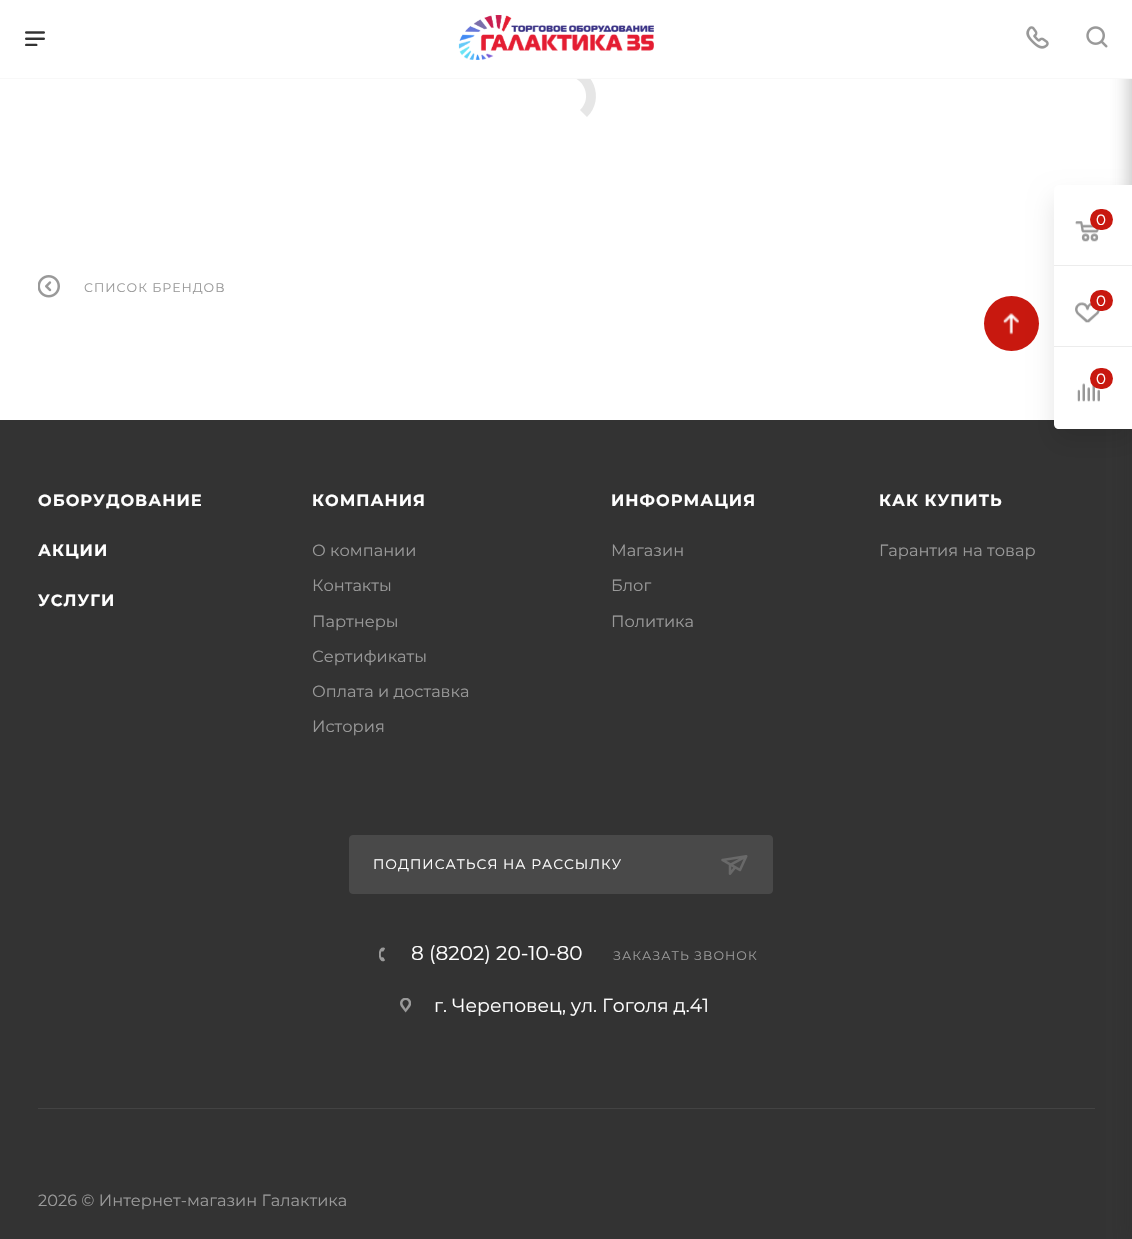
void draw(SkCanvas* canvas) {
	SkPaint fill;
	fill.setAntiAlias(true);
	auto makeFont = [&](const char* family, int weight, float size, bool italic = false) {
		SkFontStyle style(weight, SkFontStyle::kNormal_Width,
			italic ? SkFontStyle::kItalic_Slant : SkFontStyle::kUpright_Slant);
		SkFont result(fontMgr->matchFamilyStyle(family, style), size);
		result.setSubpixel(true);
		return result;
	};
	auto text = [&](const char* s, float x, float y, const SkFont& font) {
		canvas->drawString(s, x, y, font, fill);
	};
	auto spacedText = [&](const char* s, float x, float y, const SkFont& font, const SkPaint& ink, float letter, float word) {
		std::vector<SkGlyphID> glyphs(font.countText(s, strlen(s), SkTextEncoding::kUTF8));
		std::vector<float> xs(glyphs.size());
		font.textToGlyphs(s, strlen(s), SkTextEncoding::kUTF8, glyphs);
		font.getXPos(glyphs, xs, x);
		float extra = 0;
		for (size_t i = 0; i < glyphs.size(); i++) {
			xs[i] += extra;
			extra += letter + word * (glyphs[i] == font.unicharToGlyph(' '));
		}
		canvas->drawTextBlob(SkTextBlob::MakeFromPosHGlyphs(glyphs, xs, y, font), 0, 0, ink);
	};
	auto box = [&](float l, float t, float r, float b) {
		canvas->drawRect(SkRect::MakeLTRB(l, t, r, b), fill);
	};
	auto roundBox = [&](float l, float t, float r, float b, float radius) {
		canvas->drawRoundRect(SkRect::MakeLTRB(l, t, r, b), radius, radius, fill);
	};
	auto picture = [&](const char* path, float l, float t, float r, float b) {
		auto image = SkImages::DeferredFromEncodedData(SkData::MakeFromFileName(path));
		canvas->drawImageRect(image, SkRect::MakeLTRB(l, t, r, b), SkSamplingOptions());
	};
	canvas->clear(0xFFFFFFFF);
	fill.setColor(0xFFE6E6E6);
	canvas->drawPath(SkPathBuilder().moveTo(566, 66).cubicTo(593, 66, 606, 99, 587, 117).lineTo(580, 110).cubicTo(593, 98, 584, 76, 566, 76).close().detach(), fill);
	fill.setColor(0xFF333333);
	box(0, 420, 1132, 1239);
	fill.setColor(0x662C2C2C);
	fill.setMaskFilter(SkMaskFilter::MakeBlur(kNormal_SkBlurStyle, 11));
	canvas->drawRoundRect(SkRect::MakeLTRB(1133, 8, 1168, 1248), 2.5f, 2.5f, fill);
	fill.setMaskFilter(nullptr);
	fill.setColor(0xFFFFFFFF);
	box(566, 0, 1132, 78);
	fill.setColor(0xFFF8F8F8);
	box(0, 78, 1132, 79);
	picture("image0.png", 25, 31, 45, 46);
	picture("image1.png", 458, 15, 654, 60);
	picture("image2.png", 1026, 26, 1049, 49);
	picture("image3.png", 1086, 26, 1108, 48);
	picture("image4.png", 38, 275, 60, 298);
	fill.setColor(0xFFC8180F);
	canvas->drawCircle(1011.5f, 323.5f, 27.5f, fill);
	picture("image8.png", 1003, 313, 1019, 335);
	fill.setColor(0x1A000000);
	fill.setMaskFilter(SkMaskFilter::MakeBlur(kNormal_SkBlurStyle, 12.5f));
	canvas->drawRoundRect(SkRect::MakeLTRB(1054, 198, 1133, 441), 5, 5, fill);
	fill.setMaskFilter(nullptr);
	fill.setColor(0xFFFFFFFF);
	canvas->drawPath(SkPathBuilder().moveTo(1059, 185).lineTo(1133, 185).lineTo(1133, 429).lineTo(1059, 429).cubicTo(1056, 429, 1054, 427, 1054, 424).lineTo(1054, 190).cubicTo(1054, 187, 1056, 185, 1059, 185).close().detach(), fill);
	fill.setColor(0xFFECECEC);
	box(1054, 265, 1132, 266);
	picture("image5.png", 1075, 221, 1099, 242);
	fill.setColor(0xFFC8180F);
	roundBox(1090, 209, 1113, 230, 10.5f);
	fill.setColor(0xFFECECEC);
	box(1054, 346, 1132, 347);
	picture("image6.png", 1075, 302, 1100, 323);
	fill.setColor(0xFFC8180F);
	roundBox(1090, 290, 1113, 311, 10.5f);
	picture("image7.png", 1077, 383, 1100, 402);
	roundBox(1090, 368, 1113, 389, 10.5f);
	fill.setColor(0xFF494949);
	canvas->drawRoundRect(SkRect::MakeLTRB(349.5f, 835.5f, 772.5f, 893.5f), 3.5f, 3.5f, fill);
	fill.setStyle(SkPaint::kStroke_Style);
	fill.setStrokeWidth(1);
	canvas->drawRoundRect(SkRect::MakeLTRB(349.5f, 835.5f, 772.5f, 893.5f), 3.5f, 3.5f, fill);
	picture("image9.png", 721, 855, 748, 875);
	picture("image10.png", 379, 947, 385, 962);
	picture("image11.png", 400, 998, 411, 1013);
	fill.setStyle(SkPaint::kFill_Style);
	fill.setColor(0xFF434343);
	box(38, 1108, 1095, 1109);
	auto font1 = makeFont("Montserrat", 400, 12.5f);
	fill.setColor(0xFF999999);
	spacedText("СПИСОК БРЕНДОВ", 84, 292, font1, fill, 1, 0);
	auto font2 = makeFont("Montserrat", 400, 15);
	fill.setColor(0xFFFFFFFF);
	text("0", 1096, 225, font2);
	text("0", 1096, 306, font2);
	text("0", 1096, 384, font2);
	auto font3 = makeFont("Montserrat", 700, 16.25f);
	spacedText("ОБОРУДОВАНИЕ", 38, 506, font3, fill, 1, 0);
	spacedText("АКЦИИ", 38, 556, font3, fill, 1, 0);
	spacedText("УСЛУГИ", 38, 606, font3, fill, 1, 0);
	spacedText("КОМПАНИЯ", 312, 506, font3, fill, 1, 0);
	auto font4 = makeFont("Montserrat", 400, 16.25f);
	fill.setColor(0xFF999999);
	text("О компании", 312, 556, font4);
	text("Контакты", 312, 591, font4);
	text("Партнеры", 312, 627, font4);
	text("Сертификаты", 312, 662, font4);
	text("Оплата и доставка", 312, 697, font4);
	text("История", 312, 732, font4);
	fill.setColor(0xFFFFFFFF);
	spacedText("ИНФОРМАЦИЯ", 611, 506, font3, fill, 1, 0);
	fill.setColor(0xFF999999);
	text("Магазин", 611, 556, font4);
	text("Блог", 611, 591, font4);
	text("Политика", 611, 627, font4);
	fill.setColor(0xFFFFFFFF);
	spacedText("КАК КУПИТЬ", 879, 506, font3, fill, 1, 0);
	fill.setColor(0xFF999999);
	text("Гарантия на товар", 879, 556, font4);
	auto font5 = makeFont("Montserrat", 400, 13.75f);
	fill.setColor(0xFFFFFFFF);
	spacedText("ПОДПИСАТЬСЯ НА РАССЫЛКУ", 373, 869, font5, fill, 1, 0);
	auto font6 = makeFont("Montserrat", 400, 20);
	text("8 (8202) 20-10-80", 411, 960, font6);
	fill.setColor(0xFF999999);
	spacedText("ЗАКАЗАТЬ ЗВОНОК", 613, 960, font1, fill, 1, 0);
	auto font7 = makeFont("Montserrat", 400, 18.75f);
	fill.setColor(0xFFFFFFFF);
	text("г. Череповец, ул. Гоголя д.41", 434, 1012, font7);
	fill.setColor(0xFF999999);
	text("2026 © Интернет-магазин Галактика", 38, 1206, font4);
}
